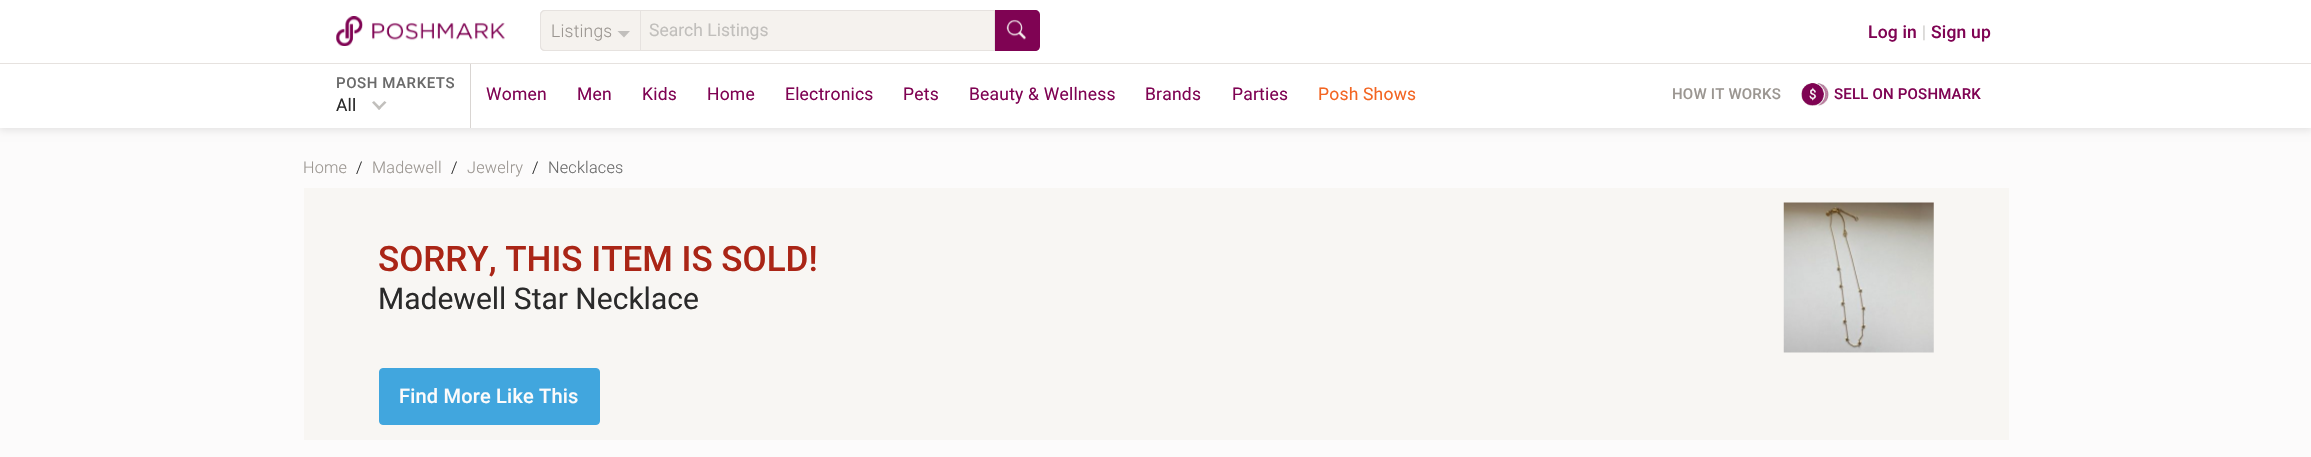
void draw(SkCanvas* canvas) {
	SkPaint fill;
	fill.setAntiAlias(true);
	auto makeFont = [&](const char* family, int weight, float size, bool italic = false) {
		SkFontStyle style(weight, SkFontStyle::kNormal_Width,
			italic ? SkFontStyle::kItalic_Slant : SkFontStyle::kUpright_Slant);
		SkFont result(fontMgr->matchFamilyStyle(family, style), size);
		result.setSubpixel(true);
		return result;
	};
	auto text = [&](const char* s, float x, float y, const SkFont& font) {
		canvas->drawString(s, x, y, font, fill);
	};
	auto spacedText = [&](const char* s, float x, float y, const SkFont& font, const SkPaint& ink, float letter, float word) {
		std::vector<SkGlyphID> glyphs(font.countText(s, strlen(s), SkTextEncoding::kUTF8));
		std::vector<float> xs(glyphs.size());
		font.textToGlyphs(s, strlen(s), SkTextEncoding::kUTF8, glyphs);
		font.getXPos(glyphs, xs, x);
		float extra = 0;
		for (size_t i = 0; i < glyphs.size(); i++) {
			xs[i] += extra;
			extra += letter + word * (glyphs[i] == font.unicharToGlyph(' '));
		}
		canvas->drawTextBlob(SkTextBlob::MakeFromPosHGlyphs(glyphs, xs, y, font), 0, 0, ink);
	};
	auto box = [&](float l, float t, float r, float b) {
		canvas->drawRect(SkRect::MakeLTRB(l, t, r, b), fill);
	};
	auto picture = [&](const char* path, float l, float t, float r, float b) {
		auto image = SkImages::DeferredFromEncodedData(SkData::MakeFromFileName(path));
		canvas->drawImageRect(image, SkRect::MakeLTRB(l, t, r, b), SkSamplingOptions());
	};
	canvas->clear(0xFFFCFBFB);
	fill.setColor(0x1A000000);
	fill.setMaskFilter(SkMaskFilter::MakeBlur(kNormal_SkBlurStyle, 4));
	canvas->drawRect(SkRect::MakeLTRB(-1, 63, 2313, 130), fill);
	fill.setMaskFilter(nullptr);
	fill.setColor(0xFFFFFFFF);
	box(0, 0, 2311, 63);
	box(0, 64, 2311, 128);
	fill.setColor(0xFFD9D5D2);
	box(470, 63, 471, 128);
	fill.setColor(0xFFE6E2DF);
	box(0, 63, 2311, 64);
	picture("image0.png", 336, 16, 505, 46);
	fill.setColor(0xFFF5F2EE);
	canvas->drawPath(SkPathBuilder().moveTo(545, 10).lineTo(640, 10).lineTo(640, 51).lineTo(545, 51).cubicTo(542, 51, 540, 49, 540, 46).lineTo(540, 15).cubicTo(540, 12, 542, 10, 545, 10).close().detach(), fill);
	fill.setColor(0xFFE6E2DF);
	canvas->drawPath(SkPathBuilder(SkPathFillType::kEvenOdd).moveTo(545, 10).lineTo(640, 10).lineTo(640, 51).lineTo(545, 51).cubicTo(542, 51, 540, 49, 540, 46).lineTo(540, 15).cubicTo(540, 12, 542, 10, 545, 10).close().moveTo(545, 11).lineTo(640, 11).lineTo(640, 50).lineTo(545, 50).cubicTo(543, 50, 541, 48, 541, 46).lineTo(541, 15).cubicTo(541, 13, 543, 11, 545, 11).close().detach(), fill);
	fill.setColor(0xFFC1BFBC);
	canvas->drawPath(SkPathBuilder().moveTo(617.5f, 31).lineTo(630, 31).lineTo(624, 37.5f).close().detach(), fill);
	fill.setColor(0xFF7F0353);
	canvas->drawPath(SkPathBuilder().moveTo(994, 10).lineTo(1035, 10).cubicTo(1038, 10, 1040, 12, 1040, 15).lineTo(1040, 46).cubicTo(1040, 49, 1038, 51, 1035, 51).lineTo(994, 51).close().detach(), fill);
	fill.setColor(0xFFF5F2EE);
	canvas->drawRect(SkRect::MakeLTRB(640.5f, 10.5f, 994.5f, 50.5f), fill);
	fill.setStyle(SkPaint::kStroke_Style);
	fill.setStrokeWidth(1);
	fill.setColor(0xFFE6E2DF);
	canvas->drawRect(SkRect::MakeLTRB(640.5f, 10.5f, 994.5f, 50.5f), fill);
	picture("image1.png", 1006, 19, 1026, 40);
	fill.setStyle(SkPaint::kFill_Style);
	fill.setColor(0xFFC1BFBC);
	canvas->drawPath(SkPathBuilder().moveTo(384.5f, 101).lineTo(386.5f, 102.5f).lineTo(379, 110).lineTo(377.5f, 108).close().detach(), fill);
	canvas->drawPath(SkPathBuilder().moveTo(374, 101).lineTo(381, 108).lineTo(379, 110).lineTo(372, 102.5f).close().detach(), fill);
	picture("image2.png", 1801, 83, 1829, 106);
	fill.setColor(0xFFF8F6F3);
	box(304, 188, 2009, 440);
	picture("image3.png", 1783, 202, 1934, 353);
	fill.setColor(0xFF41A6DE);
	canvas->drawRoundRect(SkRect::MakeLTRB(379.5f, 368.5f, 599.5f, 424.5f), 3.5f, 3.5f, fill);
	fill.setStyle(SkPaint::kStroke_Style);
	canvas->drawRoundRect(SkRect::MakeLTRB(379.5f, 368.5f, 599.5f, 424.5f), 3.5f, 3.5f, fill);
	auto font1 = makeFont("Roboto", 300, 17.5f);
	fill.setStyle(SkPaint::kFill_Style);
	fill.setColor(0xFF9B9691);
	spacedText("Listings", 551, 37, font1, fill, 0.2f, 0);
	auto font2 = makeFont("Roboto", 400, 17.5f);
	fill.setColor(0xFFC1BFBC);
	text("Search Listings", 649, 36, font2);
	auto font3 = makeFont("Roboto", 500, 17.5f);
	fill.setColor(0xFF7F0353);
	spacedText("Log in", 1868, 38, font3, fill, 0.2f, 0);
	fill.setColor(0xFFC1BFBC);
	spacedText("|", 1922, 38, font1, fill, 0.2f, 0);
	fill.setColor(0xFF7F0353);
	spacedText("Sign up", 1931, 38, font3, fill, 0.2f, 0);
	auto font4 = makeFont("Roboto", 500, 15);
	fill.setColor(0xFF6A6A6A);
	spacedText("POSH MARKETS", 336, 88, font4, fill, 0.6f, 0);
	fill.setColor(0xFF2A2A2A);
	spacedText("All", 336, 111, font2, fill, 0.2f, 0);
	fill.setColor(0xFF7F0353);
	spacedText("Women", 486, 100, font2, fill, 0.2f, 0);
	spacedText("Men", 577, 100, font2, fill, 0.2f, 0);
	spacedText("Kids", 642, 100, font2, fill, 0.2f, 0);
	spacedText("Home", 707, 100, font2, fill, 0.2f, 0);
	spacedText("Electronics", 785, 100, font2, fill, 0.2f, 0);
	spacedText("Pets", 903, 100, font2, fill, 0.2f, 0);
	spacedText("Beauty & Wellness", 969, 100, font2, fill, 0.2f, 0);
	spacedText("Brands", 1145, 100, font2, fill, 0.2f, 0);
	spacedText("Parties", 1232, 100, font2, fill, 0.2f, 0);
	fill.setColor(0xFFF36522);
	spacedText("Posh Shows", 1318, 100, font2, fill, 0.2f, 0);
	fill.setColor(0xFF9B9691);
	spacedText("HOW IT WORKS", 1672, 99, font4, fill, 0.2f, 0);
	fill.setColor(0xFF7F0353);
	spacedText("SELL ON POSHMARK", 1834, 99, font4, fill, 0.2f, 0);
	auto font5 = makeFont("Roboto", 300, 16.25f);
	fill.setColor(0xFF9B9691);
	spacedText("Home", 303, 173, font5, fill, 0.2f, 0);
	fill.setColor(0xFF2A2A2A);
	spacedText("/", 356, 173, font5, fill, 0.2f, 0);
	fill.setColor(0xFF9B9691);
	spacedText("Madewell", 372, 173, font5, fill, 0.2f, 0);
	fill.setColor(0xFF2A2A2A);
	spacedText("/", 451, 173, font5, fill, 0.2f, 0);
	fill.setColor(0xFF9B9691);
	spacedText("Jewelry", 467, 173, font5, fill, 0.2f, 0);
	fill.setColor(0xFF2A2A2A);
	spacedText("/", 532, 173, font5, fill, 0.2f, 0);
	fill.setColor(0xFF6A6A6A);
	spacedText("Necklaces", 548, 173, font5, fill, 0.2f, 0);
	auto font6 = makeFont("Roboto", 500, 35);
	fill.setColor(0xFFAA2516);
	text("SORRY, THIS ITEM IS SOLD!", 378, 271, font6);
	auto font7 = makeFont("Roboto", 400, 30);
	fill.setColor(0xFF2A2A2A);
	text("Madewell Star Necklace", 378, 309, font7);
	auto font8 = makeFont("Roboto", 500, 20);
	fill.setColor(0xFFFCFBFB);
	spacedText("Find More Like This", 399, 403, font8, fill, 0.2f, 0);
}
